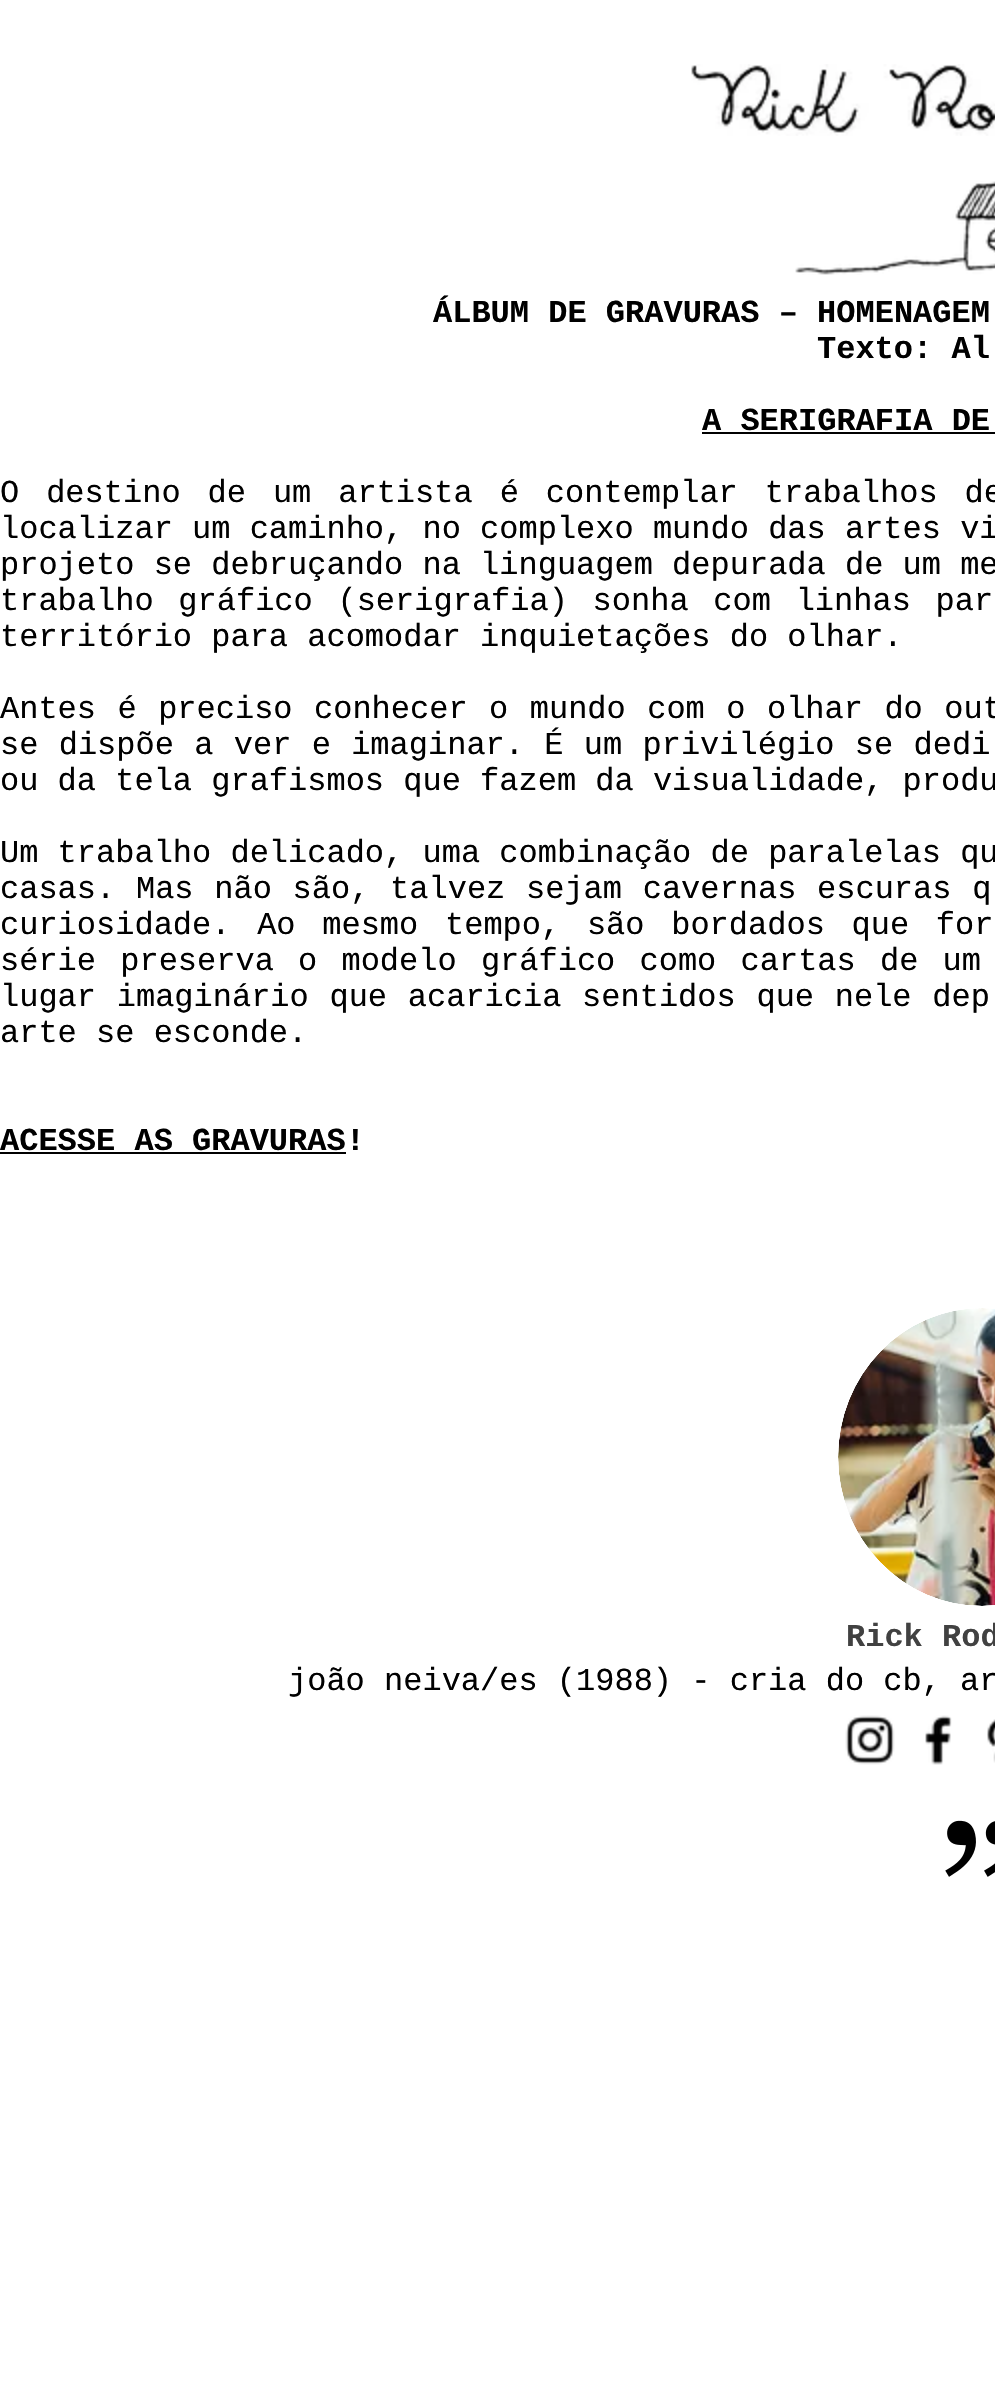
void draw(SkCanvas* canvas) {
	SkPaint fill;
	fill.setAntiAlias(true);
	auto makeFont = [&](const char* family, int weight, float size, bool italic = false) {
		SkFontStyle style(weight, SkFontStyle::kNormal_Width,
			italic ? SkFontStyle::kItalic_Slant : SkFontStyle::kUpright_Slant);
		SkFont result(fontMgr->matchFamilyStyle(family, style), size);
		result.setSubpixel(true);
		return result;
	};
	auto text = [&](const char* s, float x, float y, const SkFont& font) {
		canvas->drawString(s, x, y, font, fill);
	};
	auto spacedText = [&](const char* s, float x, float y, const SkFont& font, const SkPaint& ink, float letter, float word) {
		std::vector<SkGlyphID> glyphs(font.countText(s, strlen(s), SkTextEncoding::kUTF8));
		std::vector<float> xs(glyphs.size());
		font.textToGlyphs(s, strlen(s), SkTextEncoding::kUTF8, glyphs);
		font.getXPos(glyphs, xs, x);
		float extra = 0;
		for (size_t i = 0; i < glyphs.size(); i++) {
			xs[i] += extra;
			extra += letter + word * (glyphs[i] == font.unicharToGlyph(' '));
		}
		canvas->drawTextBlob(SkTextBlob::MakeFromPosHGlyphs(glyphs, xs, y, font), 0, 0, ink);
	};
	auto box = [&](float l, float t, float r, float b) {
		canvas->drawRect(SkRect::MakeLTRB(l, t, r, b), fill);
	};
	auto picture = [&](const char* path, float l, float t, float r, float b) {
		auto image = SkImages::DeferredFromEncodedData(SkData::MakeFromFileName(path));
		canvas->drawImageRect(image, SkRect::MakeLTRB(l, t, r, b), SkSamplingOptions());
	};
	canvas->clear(0xFFFFFFFF);
	picture("image0.png", 691, 64, 995, 136);
	picture("image1.png", 795, 181, 995, 275);
	fill.setColor(0xFF000000);
	box(702, 432, 995, 434);
	box(0, 1152, 346, 1154);
	picture("image2.png", 838, 1308, 995, 1606);
	picture("image3.png", 845, 1715, 895, 1765);
	picture("image4.png", 925, 1715, 952, 1765);
	picture("image5.png", 987, 1719, 995, 1763);
	picture("image6.png", 945, 1820, 995, 1877);
	auto font1 = makeFont("Liberation Mono", 700, 32);
	text("ÁLBUM DE GRAVURAS – HOMENAGEM", 433, 322, font1);
	text("Texto: Al", 817, 358, font1);
	text("A SERIGRAFIA DE", 702, 430, font1);
	auto font2 = makeFont("Liberation Mono", 400, 32);
	spacedText("O destino de um artista é contemplar trabalhos de", 0, 502, font2, fill, 0, 7.75f);
	text("localizar um caminho, no complexo mundo das artes vi", 0, 538, font2);
	text("projeto se debruçando na linguagem depurada de um me", 0, 574, font2);
	spacedText("trabalho gráfico (serigrafia) sonha com linhas par", 0, 610, font2, fill, 0, 5.5f);
	text("território para acomodar inquietações do olhar.", 0, 646, font2);
	spacedText("Antes é preciso conhecer o mundo com o olhar do out", 0, 718, font2, fill, 0, 2.25f);
	spacedText("se dispõe a ver e imaginar. É um privilégio se dedi", 0, 754, font2, fill, 0, 1.1f);
	text("ou da tela grafismos que fazem da visualidade, produ", 0, 790, font2);
	text("Um trabalho delicado, uma combinação de paralelas qu", 0, 862, font2);
	spacedText("casas. Mas não são, talvez sejam cavernas escuras q", 0, 898, font2, fill, 0, 1.5f);
	spacedText("curiosidade. Ao mesmo tempo, são bordados que for", 0, 934, font2, fill, 0, 7.5f);
	spacedText("série preserva o modelo gráfico como cartas de um", 0, 970, font2, fill, 0, 5);
	spacedText("lugar imaginário que acaricia sentidos que nele dep", 0, 1006, font2, fill, 0, 1.5f);
	text("arte se esconde.", 0, 1042, font2);
	text("ACESSE AS GRAVURAS!", 0, 1150, font1);
	fill.setColor(0xFF414141);
	text("Rick Rod", 846, 1646, font1);
	fill.setColor(0xFF000000);
	text("joão neiva/es (1988) - cria do cb, ar", 288, 1690, font2);
}
